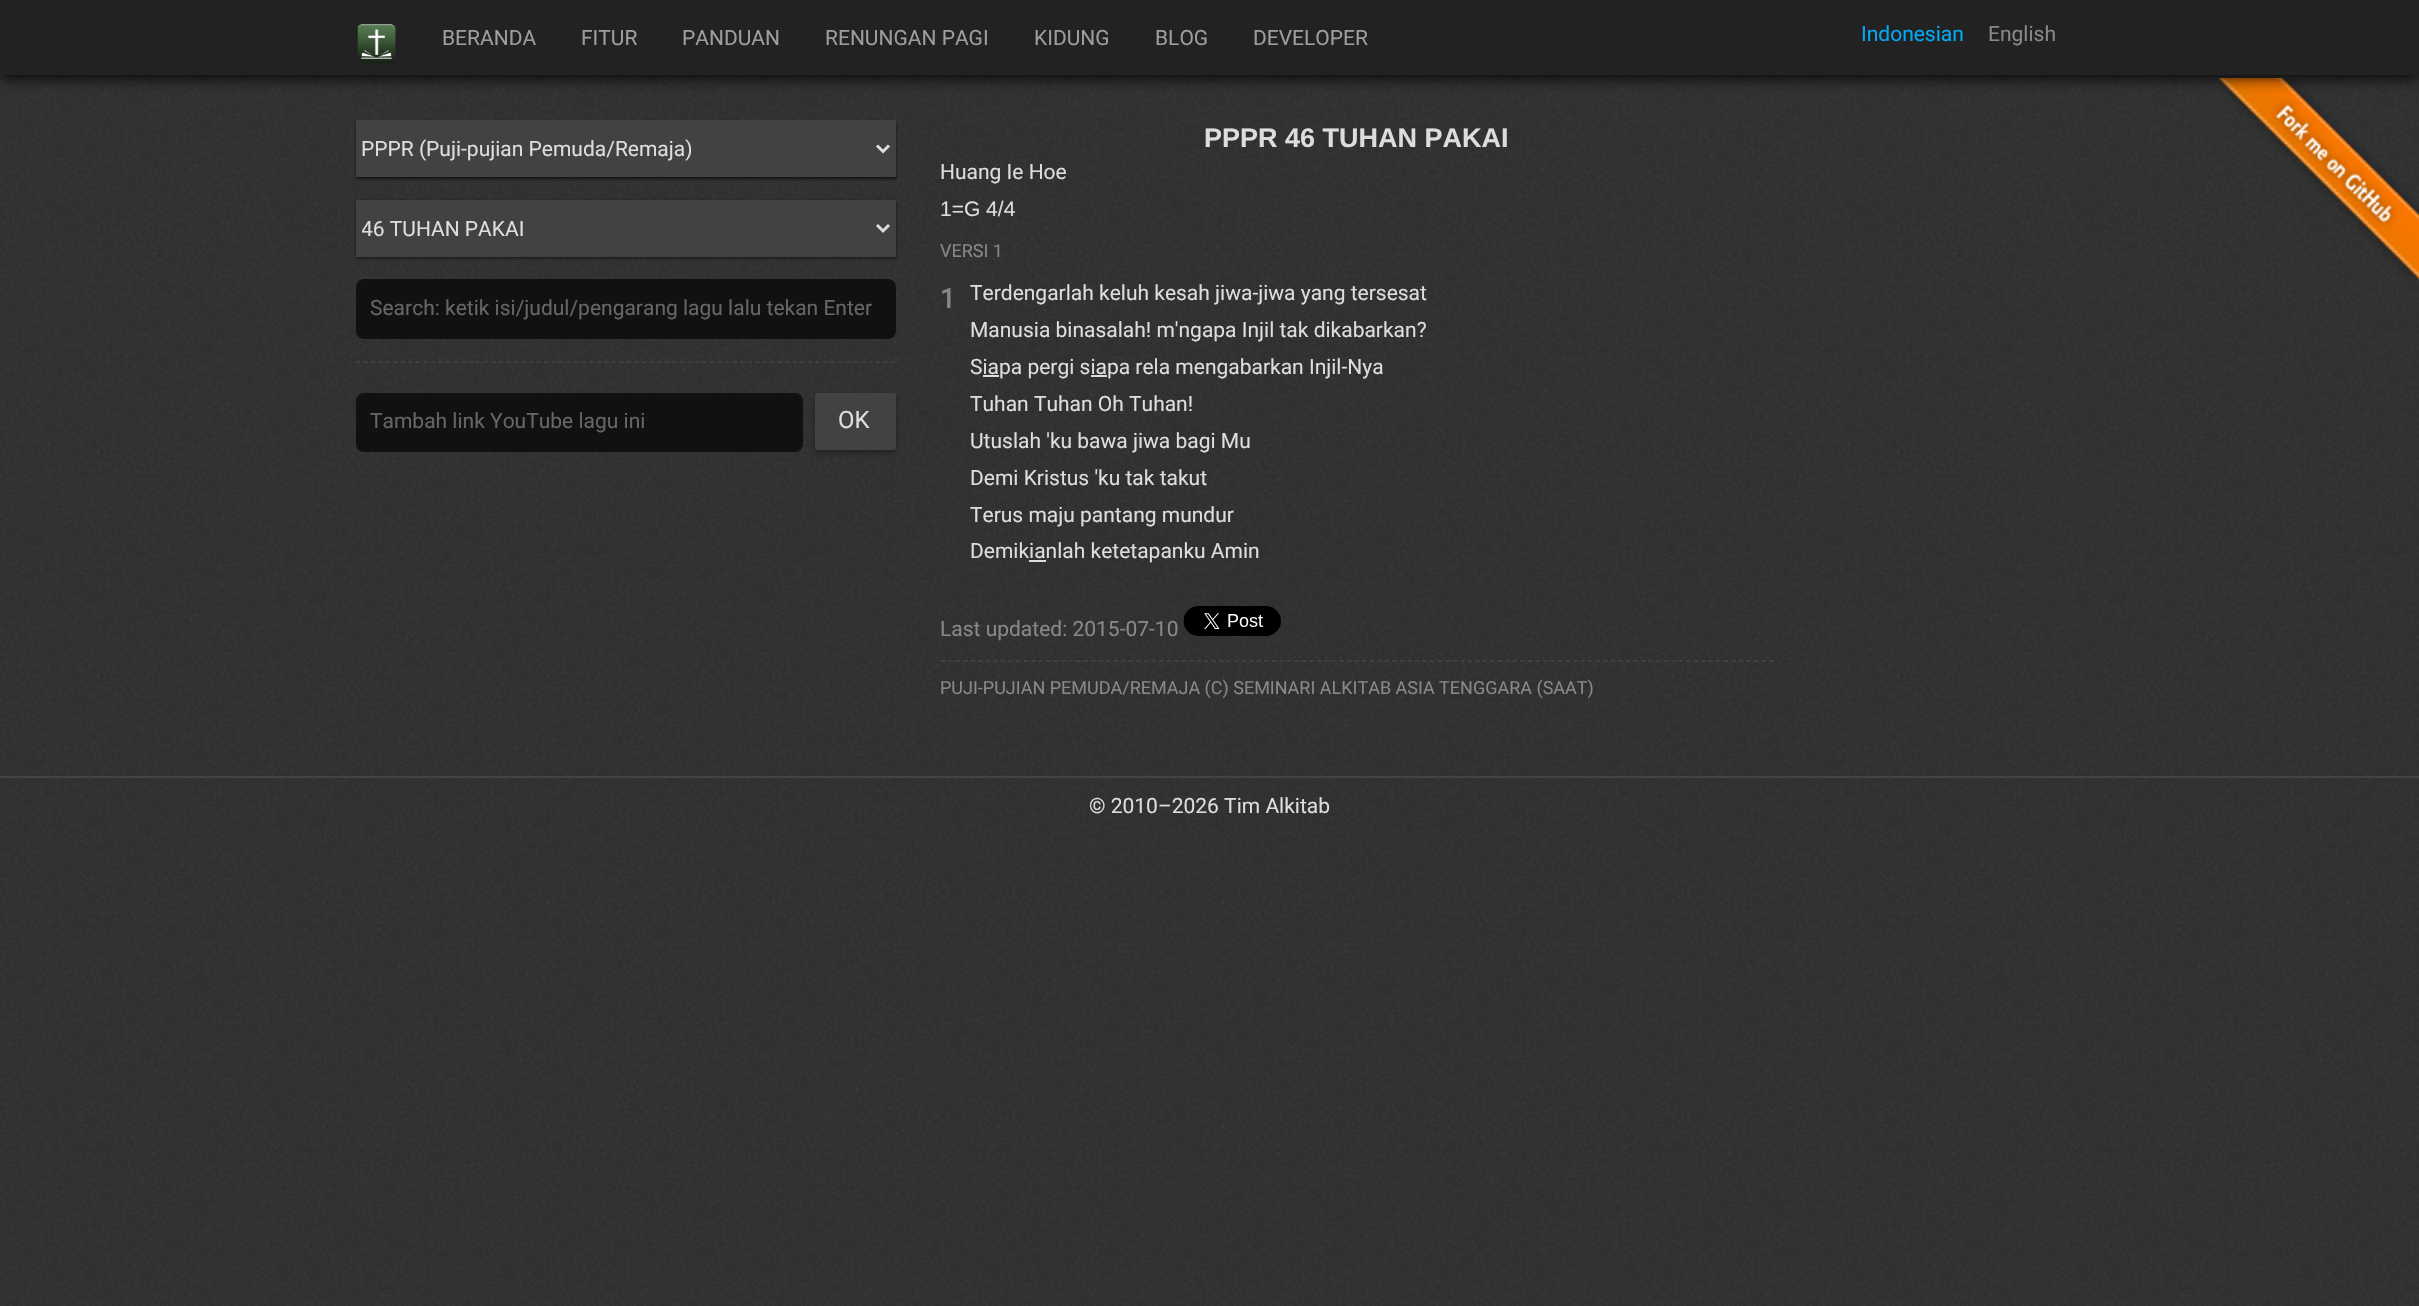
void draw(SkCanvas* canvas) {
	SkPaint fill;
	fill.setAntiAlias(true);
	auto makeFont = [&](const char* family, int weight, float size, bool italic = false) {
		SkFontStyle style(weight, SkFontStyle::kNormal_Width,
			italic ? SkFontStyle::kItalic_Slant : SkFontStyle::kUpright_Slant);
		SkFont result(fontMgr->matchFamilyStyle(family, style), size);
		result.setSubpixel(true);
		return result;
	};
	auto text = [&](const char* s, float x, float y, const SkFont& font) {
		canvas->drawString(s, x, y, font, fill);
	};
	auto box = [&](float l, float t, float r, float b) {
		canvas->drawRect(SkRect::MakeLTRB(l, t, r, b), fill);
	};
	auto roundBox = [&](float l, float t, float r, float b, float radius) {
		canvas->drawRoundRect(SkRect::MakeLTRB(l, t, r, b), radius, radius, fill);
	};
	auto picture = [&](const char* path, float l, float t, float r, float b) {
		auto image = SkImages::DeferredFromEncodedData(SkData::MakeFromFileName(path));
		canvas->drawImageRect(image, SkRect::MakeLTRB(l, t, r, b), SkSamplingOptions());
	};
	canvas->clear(0xFF303030);
	picture("image0.png", 0, 75, 2419, 1306);
	picture("image3.png", 2218, 78, 2419, 280);
	fill.setColor(0xFF000000);
	fill.setMaskFilter(SkMaskFilter::MakeBlur(kNormal_SkBlurStyle, 7.5f));
	canvas->drawRect(SkRect::MakeLTRB(0, 2, 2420, 77), fill);
	fill.setMaskFilter(nullptr);
	fill.setColor(0xFF222222);
	box(0, 0, 2419, 75);
	picture("image1.png", 357, 24, 396, 64);
	fill.setColor(0xFF111111);
	fill.setMaskFilter(SkMaskFilter::MakeBlur(kNormal_SkBlurStyle, 1.5f));
	canvas->drawRect(SkRect::MakeLTRB(356, 122, 896, 179), fill);
	fill.setMaskFilter(nullptr);
	fill.setColor(0xFF424242);
	box(356, 120, 896, 177);
	fill.setStyle(SkPaint::kStroke_Style);
	fill.setStrokeWidth(3);
	fill.setColor(0xFFDDDDDD);
	canvas->drawPath(SkPathBuilder().moveTo(877, 145.5f).lineTo(883, 151.5f).lineTo(889, 145.5f).detach(), fill);
	fill.setStyle(SkPaint::kFill_Style);
	fill.setColor(0xFF111111);
	fill.setMaskFilter(SkMaskFilter::MakeBlur(kNormal_SkBlurStyle, 1.5f));
	canvas->drawRect(SkRect::MakeLTRB(356, 201, 896, 258), fill);
	fill.setMaskFilter(nullptr);
	fill.setColor(0xFF424242);
	box(356, 200, 896, 257);
	fill.setStyle(SkPaint::kStroke_Style);
	fill.setColor(0xFFDDDDDD);
	canvas->drawPath(SkPathBuilder().moveTo(877, 225).lineTo(883, 231).lineTo(889, 225).detach(), fill);
	fill.setStyle(SkPaint::kFill_Style);
	fill.setColor(0xFF111111);
	roundBox(356, 279, 896, 339, 8);
	fill.setStyle(SkPaint::kStroke_Style);
	fill.setStrokeWidth(1.5f);
	fill.setColor(0xFF424242);
	fill.setPathEffect(SkDashPathEffect::Make({{4.5f, 3.04f}}, 0));
	canvas->drawPath(SkPathBuilder().moveTo(355.5f, 362).lineTo(895.5f, 362).detach(), fill);
	fill.setPathEffect(nullptr);
	fill.setStyle(SkPaint::kFill_Style);
	fill.setColor(0xFFDDDDDD);
	box(983, 375, 999, 377);
	box(1091, 375, 1107, 377);
	box(1029, 560, 1046, 562);
	fill.setStyle(SkPaint::kStroke_Style);
	fill.setColor(0xFF333333);
	fill.setPathEffect(SkDashPathEffect::Make({{4.5f, 3.03f}}, 0));
	canvas->drawPath(SkPathBuilder().moveTo(940.5f, 590).lineTo(1773, 590).detach(), fill);
	fill.setPathEffect(nullptr);
	picture("image2.png", 1183, 606, 1281, 636);
	fill.setColor(0xFF444444);
	fill.setPathEffect(SkDashPathEffect::Make({{4.5f, 3.03f}}, 0));
	canvas->drawPath(SkPathBuilder().moveTo(940.5f, 661).lineTo(1773, 661).detach(), fill);
	fill.setPathEffect(nullptr);
	fill.setStyle(SkPaint::kFill_Style);
	fill.setColor(0xFF111111);
	roundBox(356, 393, 803, 452, 8);
	fill.setColor(0xFF202020);
	fill.setMaskFilter(SkMaskFilter::MakeBlur(kNormal_SkBlurStyle, 3));
	canvas->drawRoundRect(SkRect::MakeLTRB(815, 396, 896, 453), 3, 3, fill);
	fill.setMaskFilter(nullptr);
	fill.setColor(0xFF424242);
	roundBox(815, 393, 896, 450, 3);
	fill.setColor(0xFF444444);
	box(0, 776, 2419, 778);
	auto font1 = makeFont("Roboto", 400, 21);
	fill.setColor(0xFF9D9D9D);
	text("BERANDA", 442, 45, font1);
	text("FITUR", 581, 45, font1);
	text("PANDUAN", 682, 45, font1);
	text("RENUNGAN PAGI", 825, 45, font1);
	text("KIDUNG", 1034, 45, font1);
	text("BLOG", 1155, 45, font1);
	text("DEVELOPER", 1253, 45, font1);
	fill.setColor(0xFF03A9F4);
	text("Indonesian", 1861, 41, font1);
	fill.setColor(0xFF888888);
	text("English", 1988, 41, font1);
	fill.setColor(0xFFDDDDDD);
	text("PPPR (Puji-pujian Pemuda/Remaja)", 361, 156, font1);
	canvas->save();
	canvas->clipRect(SkRect::MakeLTRB(362, 215, 872, 242));
	text("46 TUHAN PAKAI", 361, 236, font1);
	canvas->restore();
	fill.setColor(0xFF666666);
	text("Search: ketik isi/judul/pengarang lagu lalu tekan Enter", 370, 315, font1);
	auto font2 = makeFont("Liberation Sans", 700, 27);
	fill.setColor(0xFFDDDDDD);
	text("PPPR 46 TUHAN PAKAI", 1204, 147, font2);
	text("Huang Ie Hoe", 940, 179, font1);
	auto font3 = makeFont("Liberation Sans", 400, 21);
	text("1=G 4/4", 940, 216, font3);
	auto font4 = makeFont("Roboto", 400, 18);
	fill.setColor(0xFF888888);
	text("VERSI 1", 940, 257, font4);
	auto font5 = makeFont("Roboto", 700, 27);
	text("1", 940, 308, font5);
	fill.setColor(0xFFDDDDDD);
	text("Terdengarlah keluh kesah jiwa-jiwa yang tersesat", 970, 300, font1);
	text("Manusia binasalah! m'ngapa Injil tak dikabarkan?", 970, 337, font1);
	text("Siapa pergi siapa rela mengabarkan Injil-Nya", 970, 374, font1);
	text("Tuhan Tuhan Oh Tuhan!", 970, 411, font1);
	text("Utuslah 'ku bawa jiwa bagi Mu", 970, 448, font1);
	text("Demi Kristus 'ku tak takut", 970, 485, font1);
	text("Terus maju pantang mundur", 970, 522, font1);
	text("Demikianlah ketetapanku Amin", 970, 558, font1);
	fill.setColor(0xFF888888);
	text("Last updated: 2015-07-10", 940, 636, font1);
	text("PUJI-PUJIAN PEMUDA/REMAJA (C) SEMINARI ALKITAB ASIA TENGGARA (SAAT)", 940, 694, font4);
	fill.setColor(0xFF666666);
	text("Tambah link YouTube lagu ini", 370, 428, font1);
	auto font6 = makeFont("Roboto", 400, 24);
	fill.setColor(0xFFDDDDDD);
	text("OK", 838, 428, font6);
	text("© 2010–2026 Tim Alkitab", 1089, 813, font1);
}
